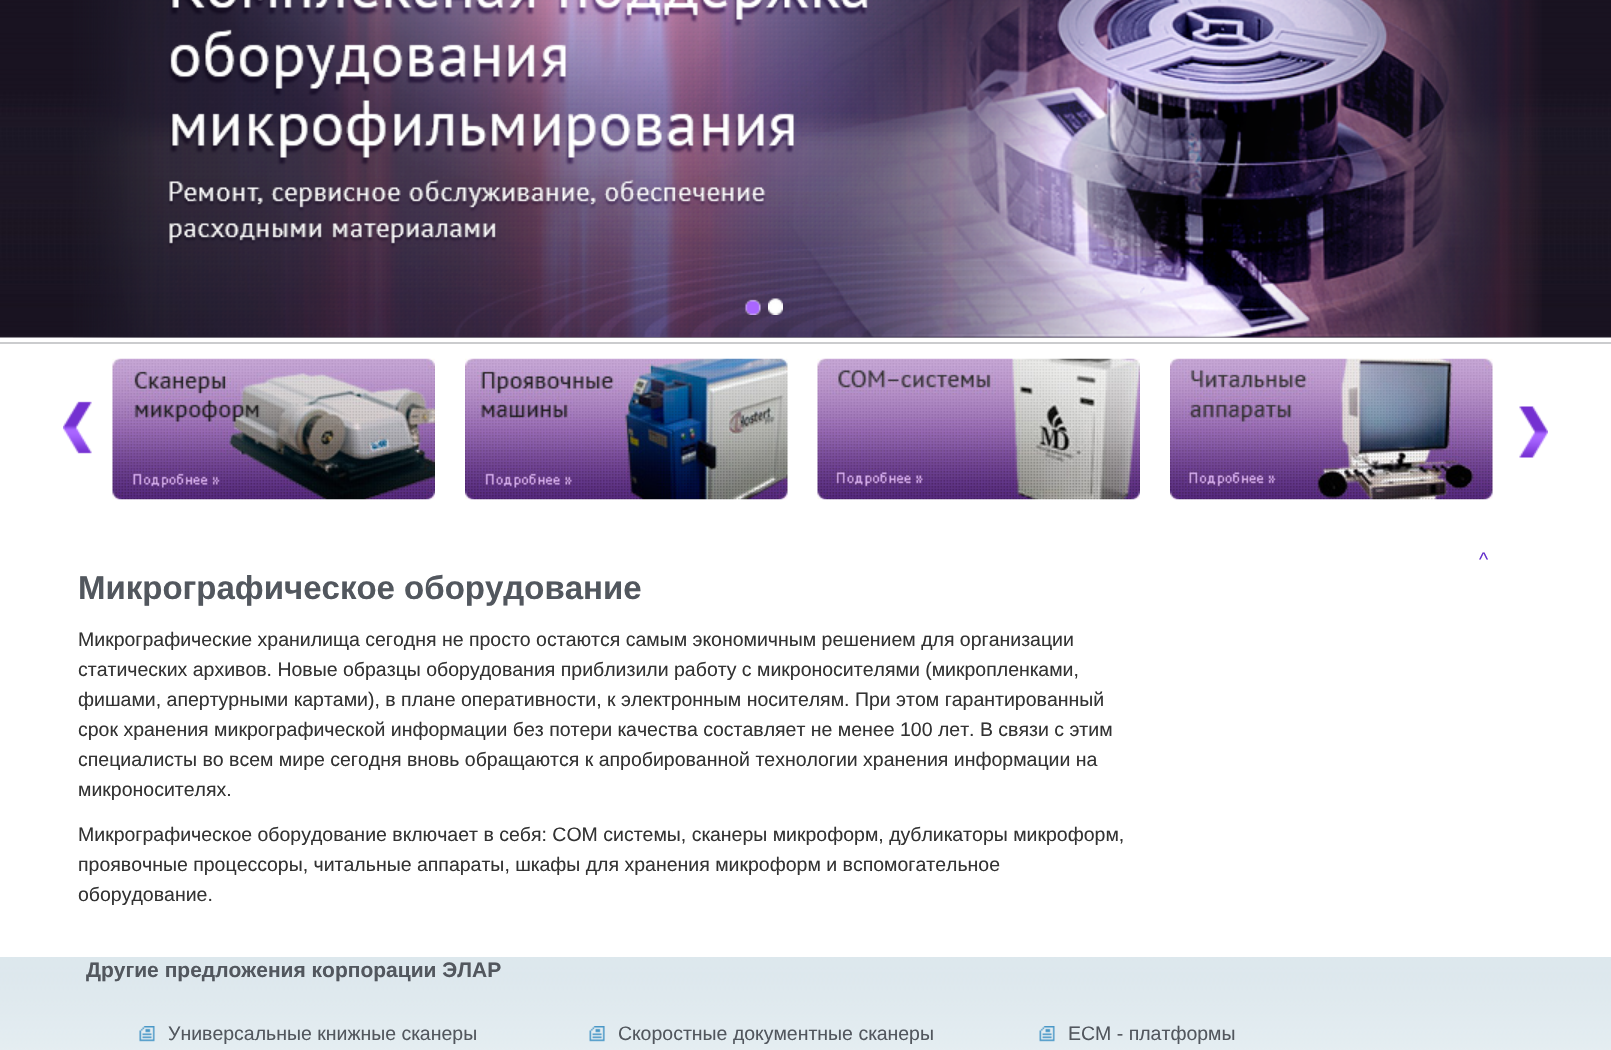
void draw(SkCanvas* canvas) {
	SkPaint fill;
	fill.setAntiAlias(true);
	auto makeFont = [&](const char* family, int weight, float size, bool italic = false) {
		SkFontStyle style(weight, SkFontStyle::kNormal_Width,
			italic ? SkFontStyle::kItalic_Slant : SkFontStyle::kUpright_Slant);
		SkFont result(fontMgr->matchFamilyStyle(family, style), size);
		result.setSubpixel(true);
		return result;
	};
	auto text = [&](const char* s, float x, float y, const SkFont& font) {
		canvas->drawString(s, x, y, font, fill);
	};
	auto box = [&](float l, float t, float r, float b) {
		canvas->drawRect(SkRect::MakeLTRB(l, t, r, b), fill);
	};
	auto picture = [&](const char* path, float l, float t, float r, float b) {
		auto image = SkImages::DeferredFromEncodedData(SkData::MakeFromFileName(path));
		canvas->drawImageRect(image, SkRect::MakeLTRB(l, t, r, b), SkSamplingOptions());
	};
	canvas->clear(0xFFFFFFFF);
	picture("image0.png", 0, 0, 1611, 338);
	fill.setColor(0xFFCBCCCE);
	box(0, 342, 1611, 344);
	picture("image1.png", 73, 0, 1542, 338);
	picture("image2.png", 745, 299, 761, 315);
	picture("image3.png", 768, 298, 783, 315);
	picture("image4.png", 63, 401, 92, 454);
	picture("image5.png", 112, 358, 435, 500);
	picture("image6.png", 465, 358, 788, 500);
	picture("image7.png", 817, 358, 1140, 500);
	picture("image8.png", 1170, 358, 1493, 500);
	picture("image9.png", 1519, 406, 1548, 458);
	picture("image10.png", 0, 957, 1611, 1050);
	picture("image11.png", 139, 1026, 155, 1042);
	picture("image12.png", 589, 1026, 605, 1042);
	picture("image13.png", 1039, 1026, 1055, 1042);
	auto font1 = makeFont("Liberation Sans", 400, 19.5f);
	fill.setColor(0xFF6633CC);
	text("^", 1479, 566, font1);
	auto font2 = makeFont("Liberation Sans", 700, 33);
	fill.setColor(0xFF52575E);
	text("Микрографическое оборудование", 78, 599, font2);
	fill.setColor(0xFF333333);
	text("Микрографические хранилища сегодня не просто остаются самым экономичным решением для организации", 78, 646, font1);
	text("статических архивов. Новые образцы оборудования приблизили работу с микроносителями (микропленками,", 78, 676, font1);
	text("фишами, апертурными картами), в плане оперативности, к электронным носителям. При этом гарантированный", 78, 706, font1);
	text("срок хранения микрографической информации без потери качества составляет не менее 100 лет. В связи с этим", 78, 736, font1);
	text("специалисты во всем мире сегодня вновь обращаются к апробированной технологии хранения информации на", 78, 766, font1);
	text("микроносителях.", 78, 796, font1);
	text("Микрографическое оборудование включает в себя: СОМ системы, сканеры микроформ, дубликаторы микроформ,", 78, 841, font1);
	text("проявочные процессоры, читальные аппараты, шкафы для хранения микроформ и вспомогательное", 78, 871, font1);
	text("оборудование.", 78, 901, font1);
	auto font3 = makeFont("Liberation Sans", 700, 21);
	fill.setColor(0xFF52575E);
	text("Другие предложения корпорации ЭЛАР", 86, 977, font3);
	text("Универсальные книжные сканеры", 168, 1040, font1);
	text("Скоростные документные сканеры", 618, 1040, font1);
	text("ECM - платформы", 1068, 1040, font1);
}
